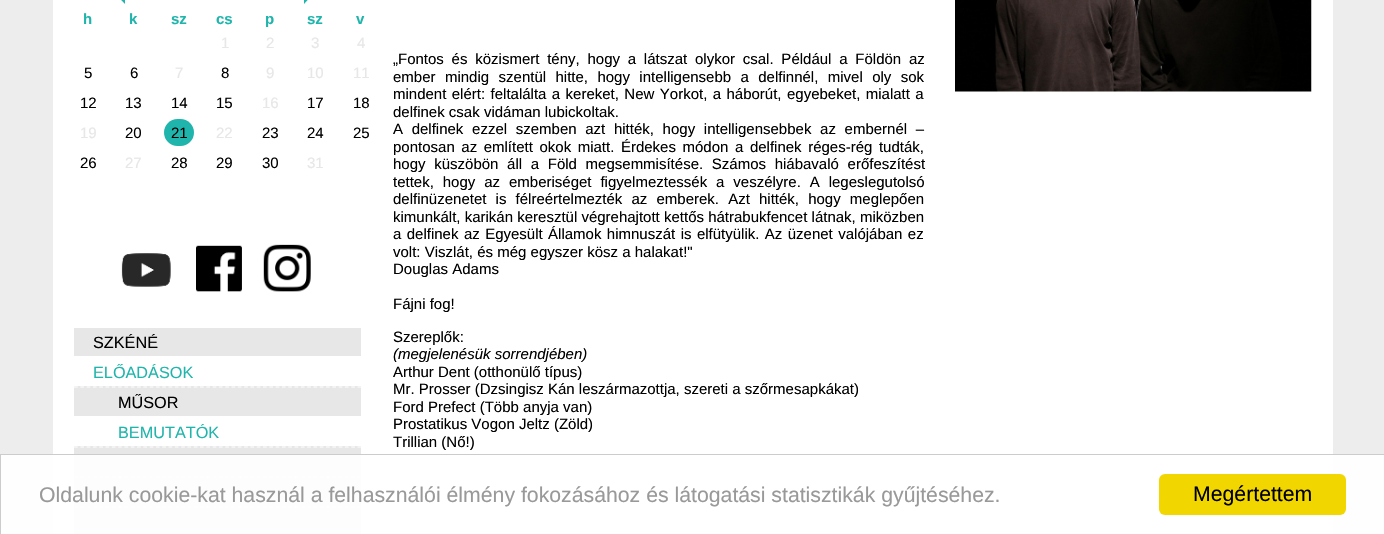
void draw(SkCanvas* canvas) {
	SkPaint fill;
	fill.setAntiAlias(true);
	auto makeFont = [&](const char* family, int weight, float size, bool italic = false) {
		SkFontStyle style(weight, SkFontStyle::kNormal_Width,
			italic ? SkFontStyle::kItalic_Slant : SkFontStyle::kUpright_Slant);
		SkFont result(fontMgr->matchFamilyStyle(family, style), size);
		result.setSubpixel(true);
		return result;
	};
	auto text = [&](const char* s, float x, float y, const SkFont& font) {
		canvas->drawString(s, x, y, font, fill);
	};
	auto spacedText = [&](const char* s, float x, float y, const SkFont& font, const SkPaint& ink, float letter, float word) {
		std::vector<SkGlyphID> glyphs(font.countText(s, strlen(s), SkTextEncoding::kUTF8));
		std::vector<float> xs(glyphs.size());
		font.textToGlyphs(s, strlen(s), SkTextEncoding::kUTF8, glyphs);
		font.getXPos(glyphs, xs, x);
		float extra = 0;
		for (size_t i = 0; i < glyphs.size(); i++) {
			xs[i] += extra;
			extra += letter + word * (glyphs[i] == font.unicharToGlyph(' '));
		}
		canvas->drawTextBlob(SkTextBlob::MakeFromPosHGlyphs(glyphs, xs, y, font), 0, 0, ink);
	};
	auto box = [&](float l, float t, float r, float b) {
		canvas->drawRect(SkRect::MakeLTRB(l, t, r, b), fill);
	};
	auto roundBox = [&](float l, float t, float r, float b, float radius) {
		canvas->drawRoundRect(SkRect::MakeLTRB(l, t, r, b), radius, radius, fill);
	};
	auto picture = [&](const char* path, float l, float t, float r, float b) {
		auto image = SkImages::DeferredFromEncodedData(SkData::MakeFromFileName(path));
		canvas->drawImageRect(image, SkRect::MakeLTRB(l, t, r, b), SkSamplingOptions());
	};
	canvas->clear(0xFFEDEDED);
	fill.setColor(0xFFFFFFFF);
	box(53, 0, 1333, 534);
	fill.setColor(0xFF20B5AC);
	canvas->drawPath(SkPathBuilder().moveTo(125, -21).lineTo(125, 4).lineTo(112.5f, -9).close().detach(), fill);
	canvas->drawPath(SkPathBuilder().moveTo(304, 4).lineTo(304, -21).lineTo(316, -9).close().detach(), fill);
	roundBox(164, 119, 194, 146, 13.5f);
	picture("image0.png", 121, 253, 171, 287);
	picture("image1.png", 196, 245, 242, 292);
	picture("image2.png", 263, 244, 311, 292);
	fill.setColor(0xFFE7E7E7);
	box(74, 328, 361, 356);
	box(74, 386, 361, 416);
	fill.setStyle(SkPaint::kStroke_Style);
	fill.setStrokeWidth(1.2f);
	fill.setColor(0xFFFFFFFF);
	fill.setPathEffect(SkDashPathEffect::Make({{3.75f, 2.55f}}, 0));
	canvas->drawPath(SkPathBuilder().moveTo(74, 387).lineTo(361, 387).detach(), fill);
	fill.setPathEffect(nullptr);
	fill.setStyle(SkPaint::kFill_Style);
	fill.setColor(0xFFE7E7E7);
	box(74, 446, 361, 534);
	fill.setStyle(SkPaint::kStroke_Style);
	fill.setColor(0xFFFFFFFF);
	fill.setPathEffect(SkDashPathEffect::Make({{3.75f, 2.55f}}, 0));
	canvas->drawPath(SkPathBuilder().moveTo(74, 447).lineTo(361, 447).detach(), fill);
	fill.setPathEffect(nullptr);
	fill.setPathEffect(SkDashPathEffect::Make({{3.75f, 2.55f}}, 0));
	canvas->drawPath(SkPathBuilder().moveTo(74, 477).lineTo(361, 477).detach(), fill);
	fill.setPathEffect(nullptr);
	fill.setPathEffect(SkDashPathEffect::Make({{3.75f, 2.55f}}, 0));
	canvas->drawPath(SkPathBuilder().moveTo(74, 507).lineTo(361, 507).detach(), fill);
	fill.setPathEffect(nullptr);
	picture("image3.png", 955, 0, 1312, 92);
	fill.setStyle(SkPaint::kFill_Style);
	fill.setColor(0xE6FFFFFF);
	canvas->drawRect(SkRect::MakeLTRB(0.5f, 454.5f, 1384.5f, 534.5f), fill);
	fill.setStyle(SkPaint::kStroke_Style);
	fill.setStrokeWidth(1);
	fill.setColor(0xFFCCCCCC);
	canvas->drawRect(SkRect::MakeLTRB(0.5f, 454.5f, 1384.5f, 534.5f), fill);
	fill.setStyle(SkPaint::kFill_Style);
	fill.setColor(0xFFF1D600);
	roundBox(1159, 474, 1346, 515, 6);
	auto font1 = makeFont("Liberation Sans", 700, 15);
	fill.setColor(0xFF20B5AC);
	text("h", 83, 24, font1);
	text("k", 129, 24, font1);
	text("sz", 171, 24, font1);
	text("cs", 216, 24, font1);
	text("p", 265, 24, font1);
	text("sz", 307, 24, font1);
	text("v", 356, 24, font1);
	auto font2 = makeFont("Liberation Sans", 400, 15);
	fill.setColor(0xFFE7E7E7);
	text("1", 221, 48, font2);
	text("2", 266, 48, font2);
	text("3", 311, 48, font2);
	text("4", 357, 48, font2);
	fill.setColor(0xFF000000);
	text("5", 84, 78, font2);
	text("6", 130, 78, font2);
	fill.setColor(0xFFE7E7E7);
	text("7", 175, 78, font2);
	fill.setColor(0xFF000000);
	text("8", 221, 78, font2);
	fill.setColor(0xFFE7E7E7);
	text("9", 266, 78, font2);
	text("10", 307, 78, font2);
	text("11", 353, 78, font2);
	fill.setColor(0xFF000000);
	text("12", 80, 108, font2);
	text("13", 125, 108, font2);
	text("14", 171, 108, font2);
	text("15", 216, 108, font2);
	fill.setColor(0xFFE7E7E7);
	text("16", 262, 108, font2);
	fill.setColor(0xFF000000);
	text("17", 307, 108, font2);
	text("18", 353, 108, font2);
	fill.setColor(0xFFE7E7E7);
	text("19", 80, 138, font2);
	fill.setColor(0xFF000000);
	text("20", 125, 138, font2);
	text("21", 171, 138, font2);
	fill.setColor(0xFFE7E7E7);
	text("22", 216, 138, font2);
	fill.setColor(0xFF000000);
	text("23", 262, 138, font2);
	text("24", 307, 138, font2);
	text("25", 353, 138, font2);
	text("26", 80, 168, font2);
	fill.setColor(0xFFE7E7E7);
	text("27", 125, 168, font2);
	fill.setColor(0xFF000000);
	text("28", 171, 168, font2);
	text("29", 216, 168, font2);
	text("30", 262, 168, font2);
	fill.setColor(0xFFE7E7E7);
	text("31", 307, 168, font2);
	auto font3 = makeFont("Liberation Sans", 400, 16.25f);
	fill.setColor(0xFF000000);
	text("SZKÉNÉ", 93, 348, font3);
	fill.setColor(0xFF20B5AC);
	text("ELŐADÁSOK", 93, 378, font3);
	fill.setColor(0xFF000000);
	text("MŰSOR", 118, 408, font3);
	fill.setColor(0xFF20B5AC);
	text("BEMUTATÓK", 118, 438, font3);
	fill.setColor(0xFF000000);
	spacedText("„Fontos és közismert tény, hogy a látszat olykor csal. Például a Földön az", 393, 64, font2, fill, 0, 3.6f);
	spacedText("ember mindig szentül hitte, hogy intelligensebb a delfinnél, mivel oly sok", 393, 82, font2, fill, 0, 5.25f);
	spacedText("mindent elért: feltalálta a kereket, New Yorkot, a háborút, egyebeket, mialatt a", 393, 99, font2, fill, 0, 1.25f);
	text("delfinek csak vidáman lubickoltak.", 393, 117, font2);
	spacedText("A delfinek ezzel szemben azt hitték, hogy intelligensebbek az embernél –", 393, 134, font2, fill, 0, 4.5f);
	spacedText("pontosan az említett okok miatt. Érdekes módon a delfinek réges-rég tudták,", 393, 152, font2, fill, 0, 2.4f);
	spacedText("hogy küszöbön áll a Föld megsemmisítése. Számos hiábavaló erőfeszítést", 393, 169, font2, fill, 0, 4.5f);
	spacedText("tettek, hogy az emberiséget figyelmeztessék a veszélyre. A legeslegutolsó", 393, 187, font2, fill, 0, 4.75f);
	spacedText("delfinüzenetet is félreértelmezték az emberek. Azt hitték, hogy meglepően", 393, 204, font2, fill, 0, 5);
	text("kimunkált, karikán keresztül végrehajtott kettős hátrabukfencet látnak, miközben", 393, 222, font2);
	spacedText("a delfinek az Egyesült Államok himnuszát is elfütyülik. Az üzenet valójában ez", 393, 239, font2, fill, 0, 1.25f);
	text("volt: Viszlát, és még egyszer kösz a halakat!\"", 393, 257, font2);
	text("Douglas Adams", 393, 274, font2);
	text("Fájni fog!", 393, 309, font2);
	text("Szereplők:", 393, 342, font2);
	auto font4 = makeFont("Liberation Sans", 400, 15, true);
	text("(megjelenésük sorrendjében)", 393, 359, font4);
	text("Arthur Dent (otthonülő típus)", 393, 377, font2);
	text("Mr. Prosser (Dzsingisz Kán leszármazottja, szereti a szőrmesapkákat)", 393, 394, font2);
	text("Ford Prefect (Több anyja van)", 393, 412, font2);
	text("Prostatikus Vogon Jeltz (Zöld)", 393, 429, font2);
	text("Trillian (Nő!)", 393, 447, font2);
	auto font5 = makeFont("Liberation Sans", 400, 21.25f);
	fill.setColor(0xFF999999);
	text("Oldalunk cookie-kat használ a felhasználói élmény fokozásához és látogatási statisztikák gyűjtéséhez.", 39, 502, font5);
	fill.setColor(0xFF000000);
	text("Megértettem", 1193, 501, font5);
}
